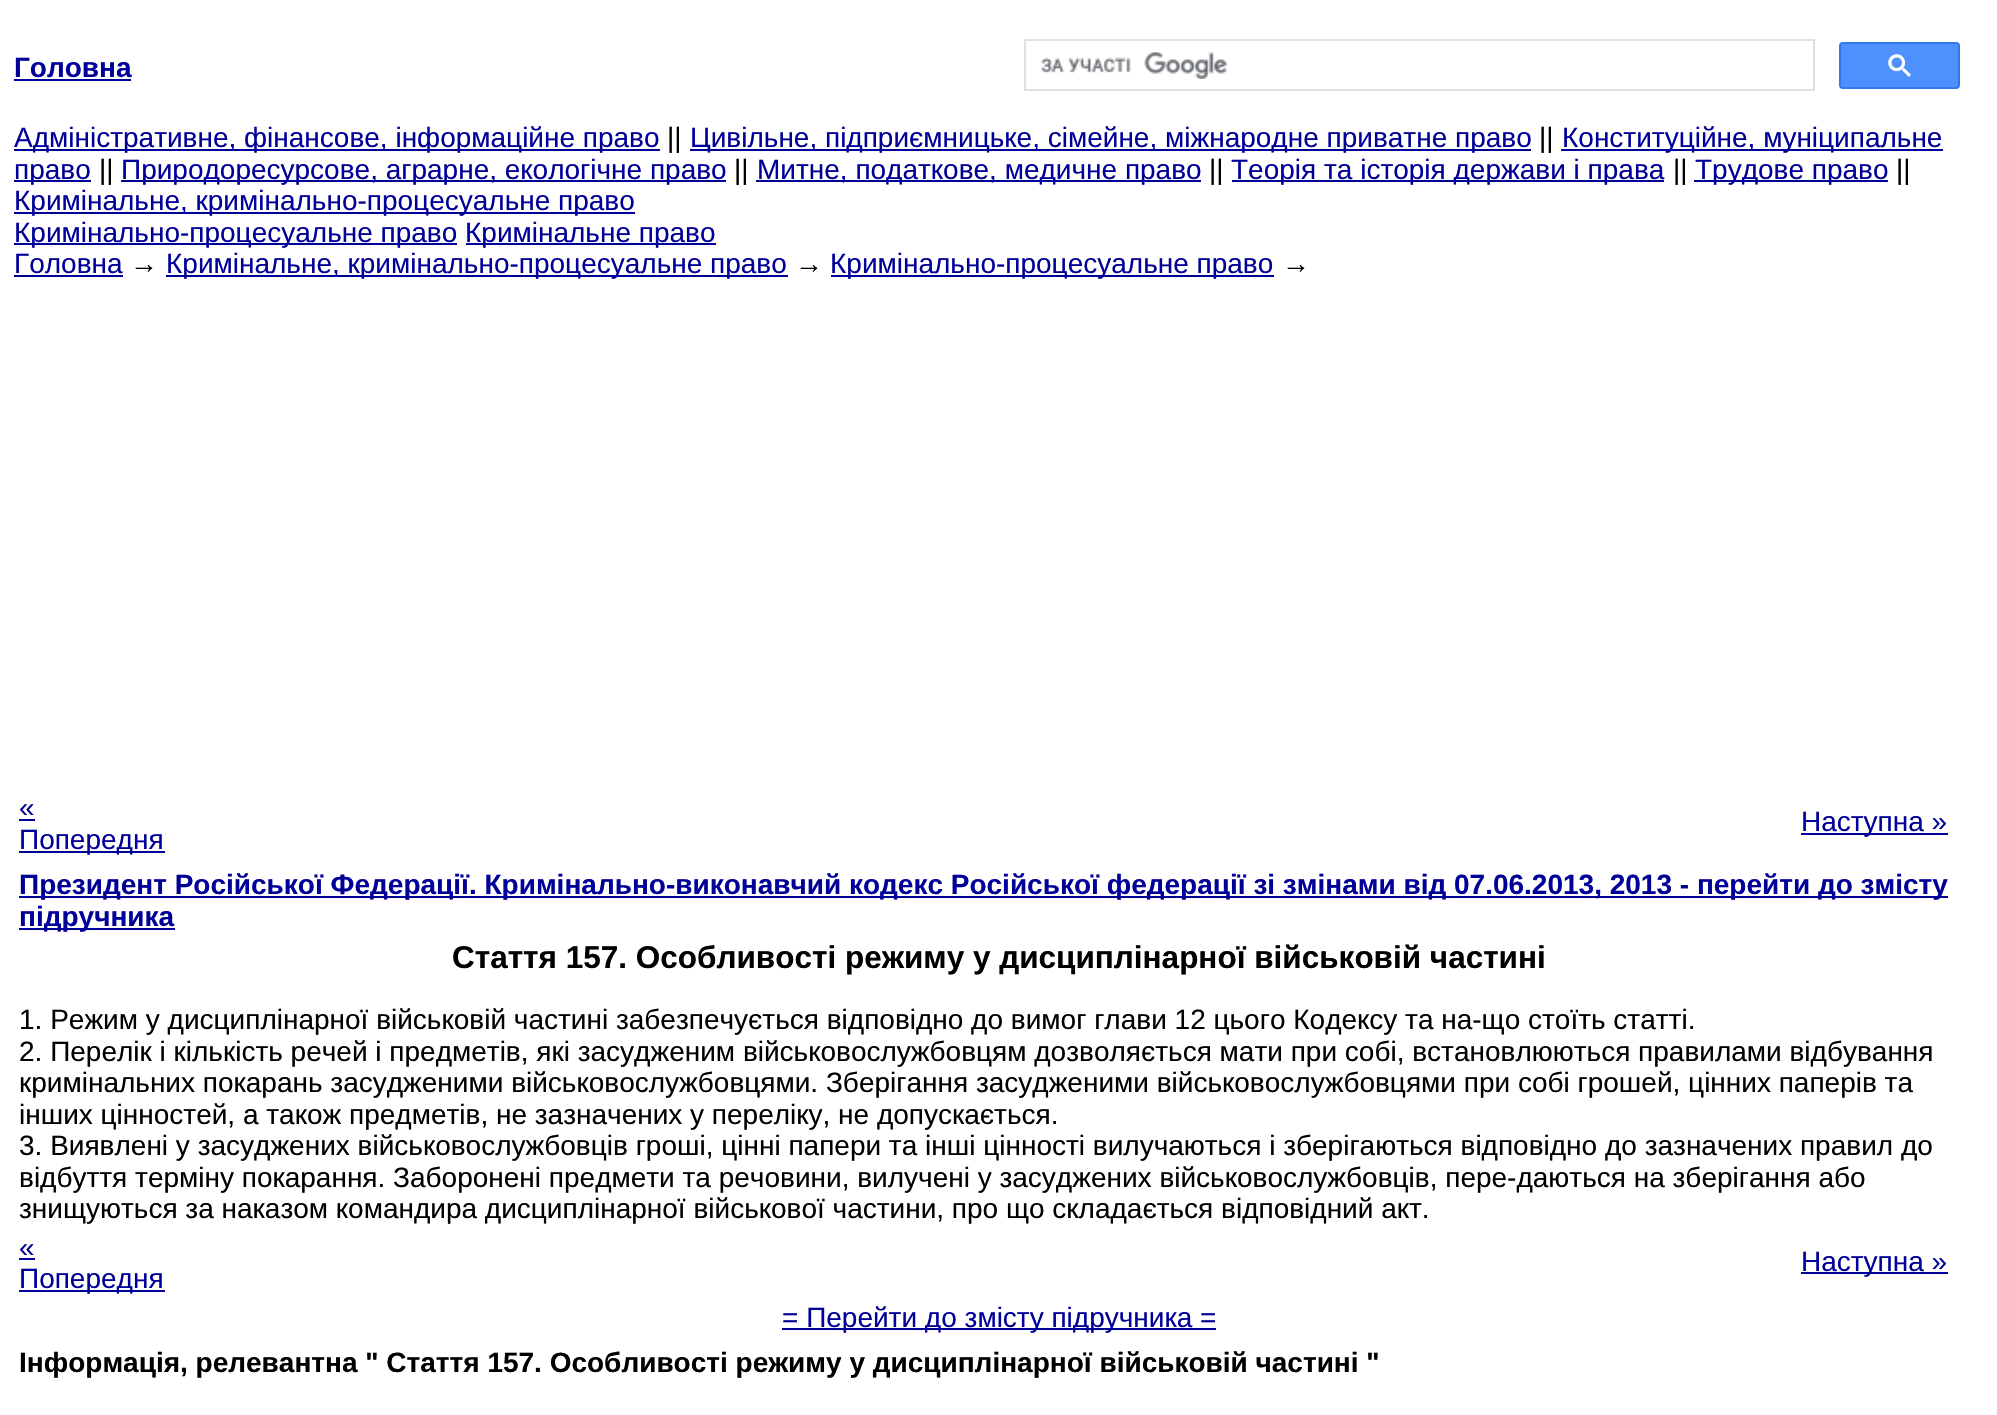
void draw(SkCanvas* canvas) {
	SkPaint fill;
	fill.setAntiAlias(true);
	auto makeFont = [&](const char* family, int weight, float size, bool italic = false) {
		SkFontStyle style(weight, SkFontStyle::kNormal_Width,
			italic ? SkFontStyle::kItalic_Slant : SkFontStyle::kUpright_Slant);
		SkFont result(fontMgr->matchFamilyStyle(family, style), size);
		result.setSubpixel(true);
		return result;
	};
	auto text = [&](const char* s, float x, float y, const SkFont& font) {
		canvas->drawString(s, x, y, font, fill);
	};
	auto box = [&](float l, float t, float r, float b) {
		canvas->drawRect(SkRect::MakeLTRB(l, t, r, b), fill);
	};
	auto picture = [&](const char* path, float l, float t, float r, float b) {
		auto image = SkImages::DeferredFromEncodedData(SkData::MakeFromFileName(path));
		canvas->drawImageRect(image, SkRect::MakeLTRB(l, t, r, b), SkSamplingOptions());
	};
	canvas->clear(0xFFFFFFFF);
	fill.setColor(0xFF000099);
	box(14, 79, 131, 81);
	fill.setStyle(SkPaint::kStroke_Style);
	fill.setStrokeWidth(2);
	fill.setColor(0xFFDFE1E5);
	canvas->drawRect(SkRect::MakeLTRB(1025, 40, 1814, 90), fill);
	picture("image0.png", 1041, 52, 1227, 79);
	fill.setStyle(SkPaint::kFill_Style);
	fill.setColor(0xFF4D90FE);
	canvas->drawRoundRect(SkRect::MakeLTRB(1840, 43, 1959, 88), 3, 3, fill);
	fill.setStyle(SkPaint::kStroke_Style);
	fill.setColor(0xFF3079ED);
	canvas->drawRoundRect(SkRect::MakeLTRB(1840, 43, 1959, 88), 3, 3, fill);
	picture("image1.png", 1888, 54, 1911, 77);
	fill.setStyle(SkPaint::kFill_Style);
	fill.setColor(0xFF000099);
	box(14, 149, 660, 151);
	box(690, 149, 1531, 151);
	box(1561, 149, 1943, 151);
	box(14, 180, 91, 182);
	box(121, 180, 726, 182);
	box(756, 180, 1201, 182);
	box(1232, 180, 1664, 182);
	box(1694, 180, 1888, 182);
	box(14, 212, 635, 214);
	box(14, 243, 457, 245);
	box(466, 243, 716, 245);
	box(14, 275, 123, 277);
	box(166, 275, 788, 277);
	box(831, 275, 1274, 277);
	box(19, 819, 35, 821);
	box(19, 851, 165, 853);
	box(1801, 833, 1948, 835);
	box(19, 896, 1948, 898);
	box(19, 928, 175, 930);
	box(19, 1258, 35, 1260);
	box(19, 1290, 165, 1292);
	box(1801, 1272, 1948, 1274);
	box(782, 1328, 1216, 1330);
	auto font1 = makeFont("Liberation Sans", 700, 28);
	text("Головна", 14, 77, font1);
	auto font2 = makeFont("Liberation Sans", 400, 28);
	text("Адміністративне, фінансове, інформаційне право", 14, 147, font2);
	fill.setColor(0xFF000000);
	text("||", 667, 147, font2);
	fill.setColor(0xFF000099);
	text("Цивільне, підприємницьке, сімейне, міжнародне приватне право", 690, 147, font2);
	fill.setColor(0xFF000000);
	text("||", 1539, 147, font2);
	fill.setColor(0xFF000099);
	text("Конституційне, муніципальне", 1562, 147, font2);
	text("право", 14, 179, font2);
	fill.setColor(0xFF000000);
	text("||", 99, 179, font2);
	fill.setColor(0xFF000099);
	text("Природоресурсове, аграрне, екологічне право", 121, 179, font2);
	fill.setColor(0xFF000000);
	text("||", 734, 179, font2);
	fill.setColor(0xFF000099);
	text("Митне, податкове, медичне право", 757, 179, font2);
	fill.setColor(0xFF000000);
	text("||", 1209, 179, font2);
	fill.setColor(0xFF000099);
	text("Теорія та історія держави і права", 1231, 179, font2);
	fill.setColor(0xFF000000);
	text("||", 1673, 179, font2);
	fill.setColor(0xFF000099);
	text("Трудове право", 1695, 179, font2);
	fill.setColor(0xFF000000);
	text("||", 1896, 179, font2);
	fill.setColor(0xFF000099);
	text("Кримінальне, кримінально-процесуальне право", 14, 210, font2);
	text("Кримінально-процесуальне право", 14, 242, font2);
	text("Кримінальне право", 465, 242, font2);
	text("Головна", 14, 273, font2);
	fill.setColor(0xFF000000);
	text("→", 130, 273, font2);
	fill.setColor(0xFF000099);
	text("Кримінальне, кримінально-процесуальне право", 166, 273, font2);
	fill.setColor(0xFF000000);
	text("→", 795, 273, font2);
	fill.setColor(0xFF000099);
	text("Кримінально-процесуальне право", 830, 273, font2);
	fill.setColor(0xFF000000);
	text("→", 1282, 273, font2);
	fill.setColor(0xFF000099);
	text("«", 19, 817, font2);
	text("Попередня", 19, 849, font2);
	text("Наступна »", 1801, 831, font2);
	text("Президент Російської Федерації. Кримінально-виконавчий кодекс Російської федерації зі змінами від 07.06.2013, 2013 - перейти до змісту", 19, 894, font1);
	text("підручника", 19, 926, font1);
	auto font3 = makeFont("Liberation Sans", 700, 31.5f);
	fill.setColor(0xFF000000);
	text("Стаття 157. Особливості режиму у дисциплінарної військовій частині", 452, 968, font3);
	text("1. Режим у дисциплінарної військовій частині забезпечується відповідно до вимог глави 12 цього Кодексу та на-що стоїть статті.", 19, 1029, font2);
	text("2. Перелік і кількість речей і предметів, які засудженим військовослужбовцям дозволяється мати при собі, встановлюються правилами відбування", 19, 1061, font2);
	text("кримінальних покарань засудженими військовослужбовцями. Зберігання засудженими військовослужбовцями при собі грошей, цінних паперів та", 19, 1092, font2);
	text("інших цінностей, а також предметів, не зазначених у переліку, не допускається.", 19, 1124, font2);
	text("3. Виявлені у засуджених військовослужбовців гроші, цінні папери та інші цінності вилучаються і зберігаються відповідно до зазначених правил до", 19, 1155, font2);
	text("відбуття терміну покарання. Заборонені предмети та речовини, вилучені у засуджених військовослужбовців, пере-даються на зберігання або", 19, 1187, font2);
	text("знищуються за наказом командира дисциплінарної військової частини, про що складається відповідний акт.", 19, 1218, font2);
	fill.setColor(0xFF000099);
	text("«", 19, 1257, font2);
	text("Попередня", 19, 1288, font2);
	text("Наступна »", 1801, 1271, font2);
	text("= Перейти до змісту підручника =", 782, 1327, font2);
	fill.setColor(0xFF000000);
	text("Інформація, релевантна \" Стаття 157. Особливості режиму у дисциплінарної військовій частині \"", 19, 1372, font1);
}
